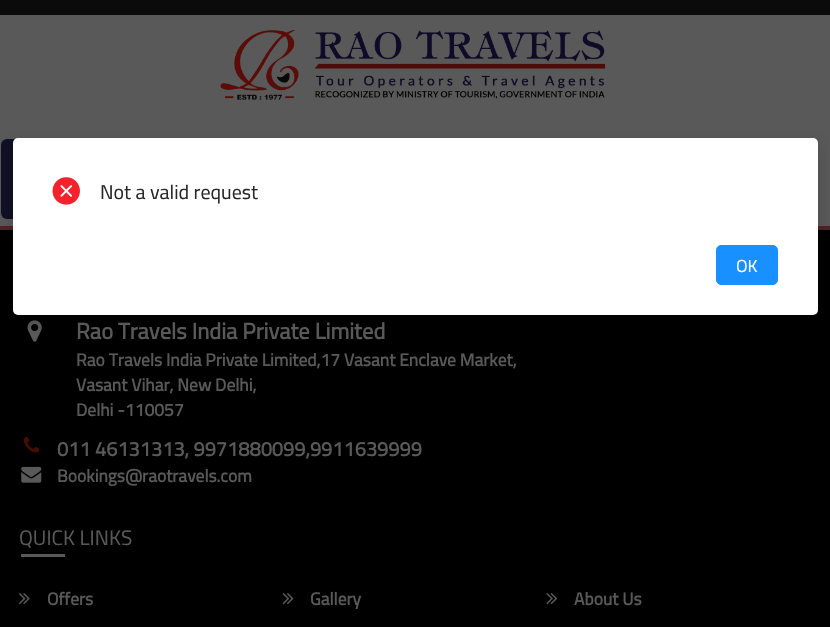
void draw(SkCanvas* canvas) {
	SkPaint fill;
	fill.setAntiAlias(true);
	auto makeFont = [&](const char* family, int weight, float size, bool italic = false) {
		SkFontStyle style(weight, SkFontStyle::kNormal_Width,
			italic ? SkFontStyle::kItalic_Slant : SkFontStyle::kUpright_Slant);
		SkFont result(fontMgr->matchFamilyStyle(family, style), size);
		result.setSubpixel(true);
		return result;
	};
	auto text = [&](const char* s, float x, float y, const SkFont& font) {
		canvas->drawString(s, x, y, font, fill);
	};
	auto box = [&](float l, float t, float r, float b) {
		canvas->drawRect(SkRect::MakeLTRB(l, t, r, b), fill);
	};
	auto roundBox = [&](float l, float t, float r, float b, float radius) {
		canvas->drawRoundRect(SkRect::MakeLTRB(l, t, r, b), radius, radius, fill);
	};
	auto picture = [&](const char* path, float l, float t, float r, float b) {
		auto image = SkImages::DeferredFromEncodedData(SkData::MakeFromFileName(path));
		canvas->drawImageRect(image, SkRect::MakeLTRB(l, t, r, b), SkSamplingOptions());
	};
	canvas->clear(0xFF595959);
	fill.setColor(0xFF0B0B0B);
	box(0, 0, 830, 15);
	picture("image0.png", 220, 29, 606, 100);
	fill.setColor(0xFF100F26);
	roundBox(1, 139, 791, 219, 6);
	fill.setColor(0xFF4E2424);
	box(0, 226, 830, 230);
	fill.setColor(0xFF000000);
	box(0, 230, 830, 627);
	picture("image2.png", 27, 320, 42, 342);
	fill.setColor(0x26000000);
	fill.setMaskFilter(SkMaskFilter::MakeBlur(kNormal_SkBlurStyle, 7.5f));
	canvas->drawRoundRect(SkRect::MakeLTRB(13, 143, 818, 320), 5, 5, fill);
	fill.setMaskFilter(nullptr);
	fill.setColor(0xFFFFFFFF);
	roundBox(13, 138, 818, 315, 5);
	picture("image1.png", 52, 177, 80, 205);
	fill.setColor(0xFF1890FF);
	canvas->drawRoundRect(SkRect::MakeLTRB(716.5f, 245.5f, 777.5f, 284.5f), 4.5f, 4.5f, fill);
	fill.setStyle(SkPaint::kStroke_Style);
	fill.setStrokeWidth(1);
	canvas->drawRoundRect(SkRect::MakeLTRB(716.5f, 245.5f, 777.5f, 284.5f), 4.5f, 4.5f, fill);
	picture("image3.png", 23, 436, 40, 453);
	picture("image4.png", 21, 466, 42, 483);
	fill.setStyle(SkPaint::kFill_Style);
	fill.setColor(0xFF595959);
	box(21, 554, 65, 557);
	picture("image5.png", 18, 593, 30, 605);
	picture("image6.png", 282, 593, 294, 605);
	picture("image7.png", 546, 593, 558, 605);
	auto font1 = makeFont("Titillium Web", 400, 20);
	fill.setColor(0xFF262626);
	text("Not a valid request", 100, 199, font1);
	auto font2 = makeFont("Titillium Web", 400, 17.5f);
	fill.setColor(0xFFFFFFFF);
	text("OK", 736, 272, font2);
	auto font3 = makeFont("Titillium Web", 700, 22.5f);
	fill.setColor(0xFF595959);
	text("Rao Travels India Private Limited", 76, 339, font3);
	auto font4 = makeFont("Titillium Web", 700, 17.5f);
	text("Rao Travels India Private Limited,17 Vasant Enclave Market,", 76, 366, font4);
	text("Vasant Vihar, New Delhi,", 76, 391, font4);
	text("Delhi -110057", 76, 416, font4);
	auto font5 = makeFont("Titillium Web", 700, 20);
	text("011 46131313, 9971880099,9911639999", 57, 456, font5);
	text("Bookings@raotravels.com", 57, 482, font4);
	auto font6 = makeFont("Titillium Web", 400, 21);
	text("QUICK LINKS", 19, 545, font6);
	text("Offers", 47, 605, font4);
	text("Gallery", 310, 605, font4);
	text("About Us", 574, 605, font4);
}
